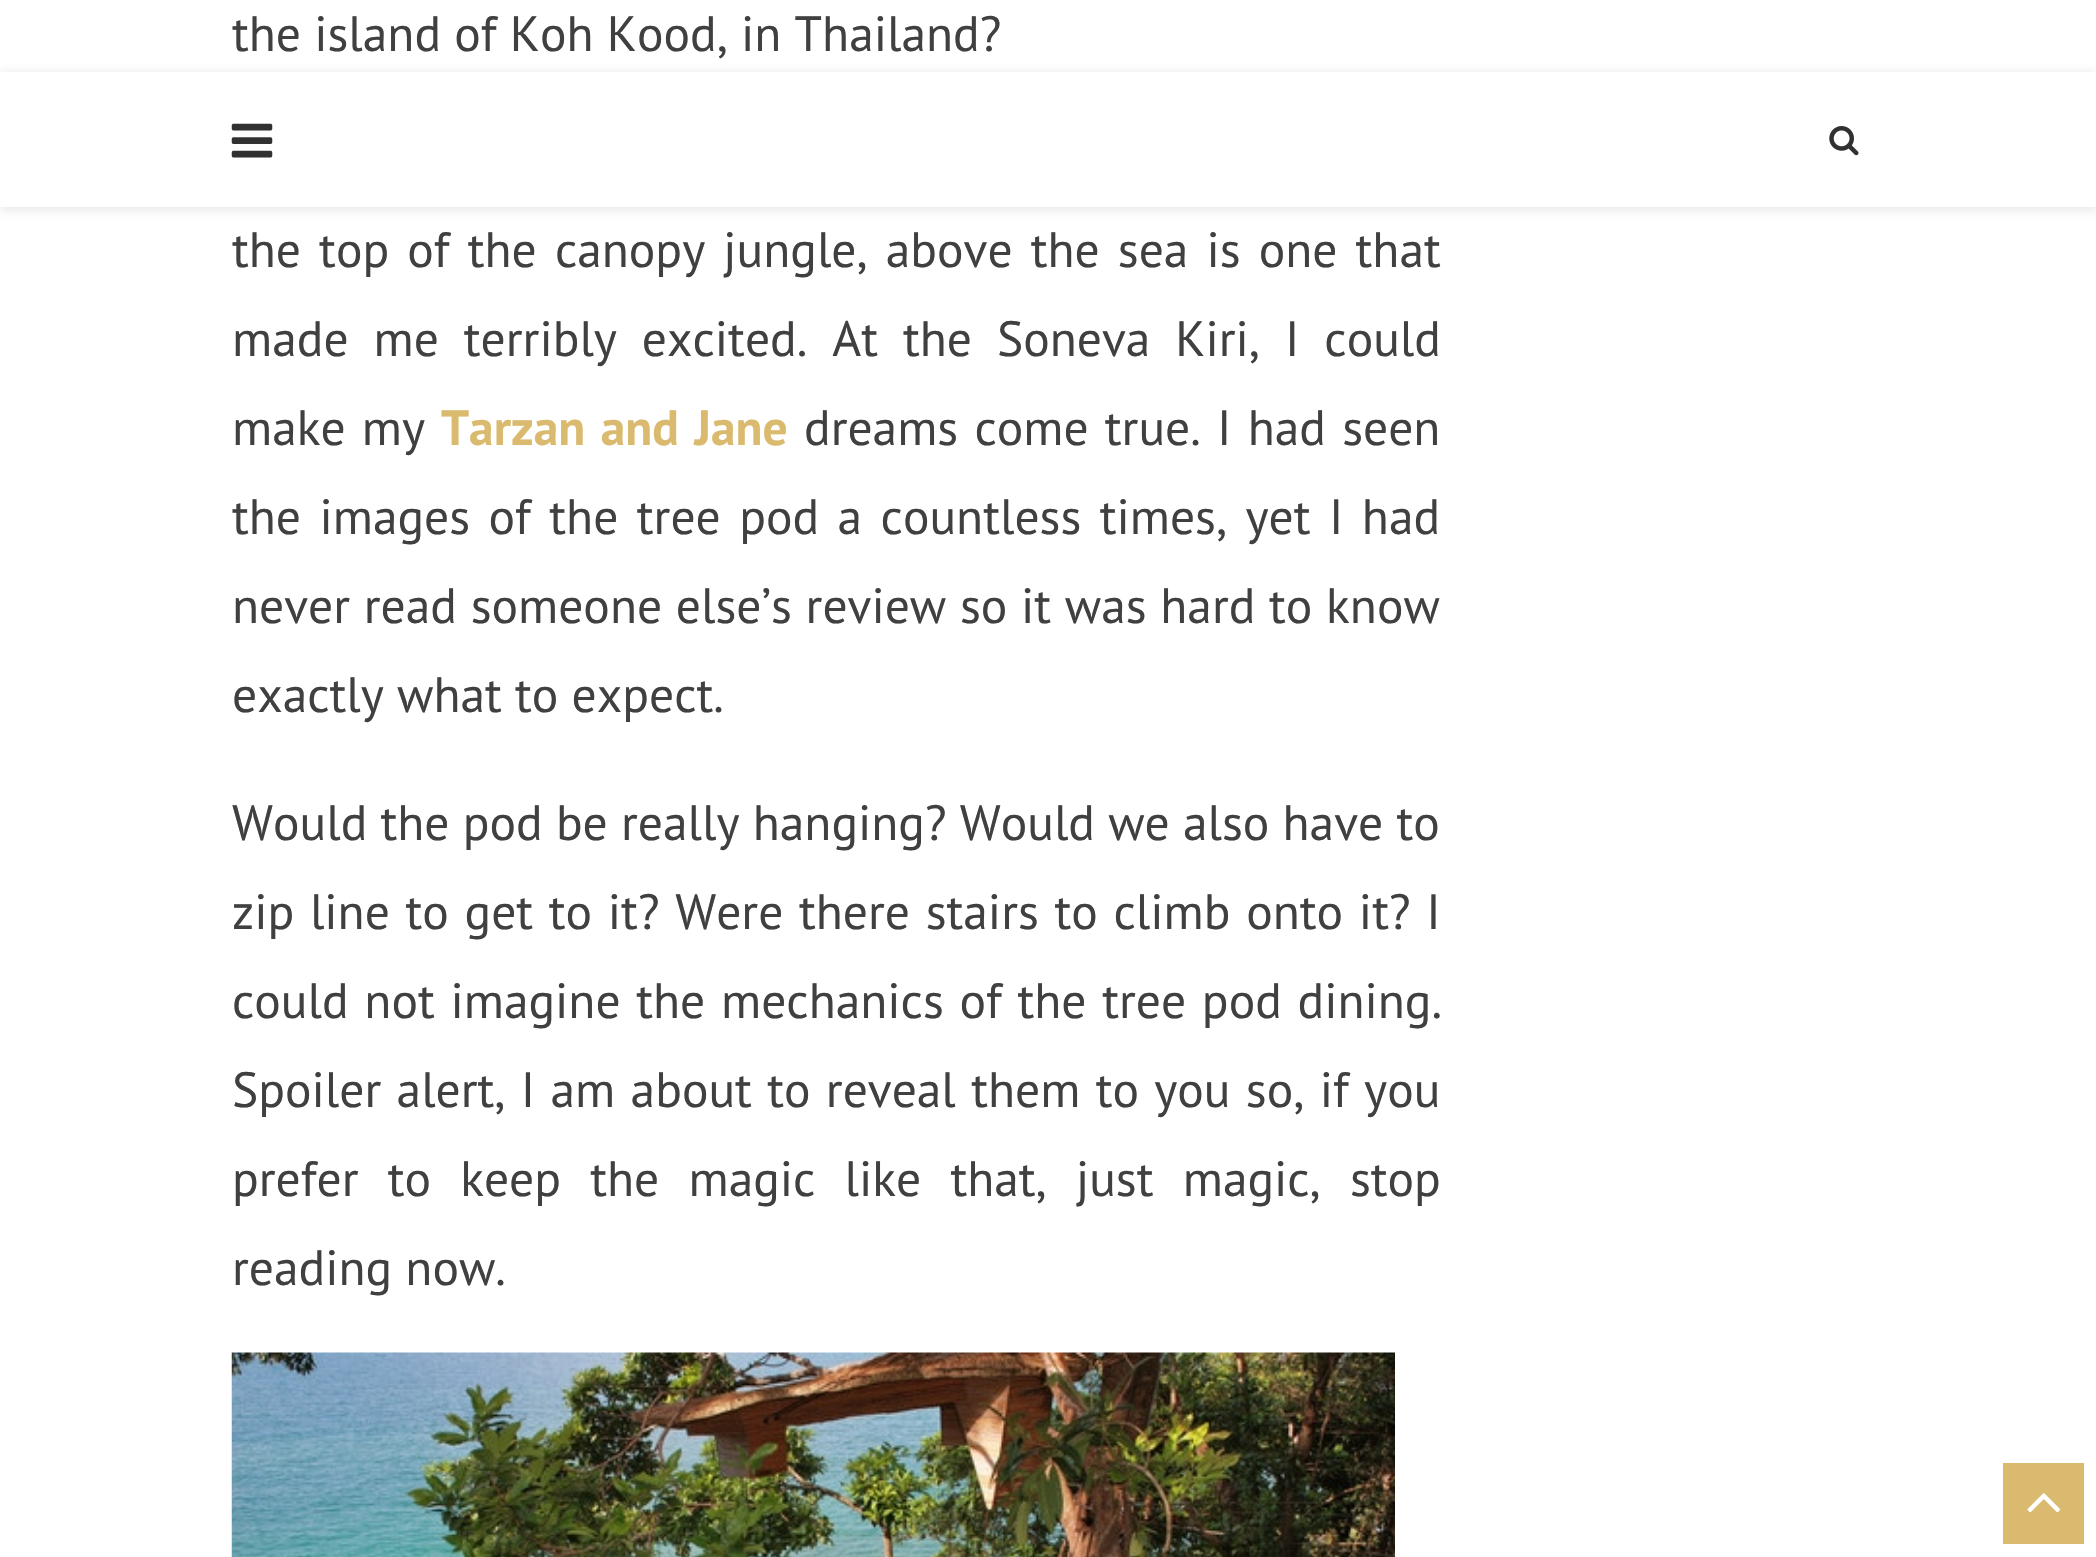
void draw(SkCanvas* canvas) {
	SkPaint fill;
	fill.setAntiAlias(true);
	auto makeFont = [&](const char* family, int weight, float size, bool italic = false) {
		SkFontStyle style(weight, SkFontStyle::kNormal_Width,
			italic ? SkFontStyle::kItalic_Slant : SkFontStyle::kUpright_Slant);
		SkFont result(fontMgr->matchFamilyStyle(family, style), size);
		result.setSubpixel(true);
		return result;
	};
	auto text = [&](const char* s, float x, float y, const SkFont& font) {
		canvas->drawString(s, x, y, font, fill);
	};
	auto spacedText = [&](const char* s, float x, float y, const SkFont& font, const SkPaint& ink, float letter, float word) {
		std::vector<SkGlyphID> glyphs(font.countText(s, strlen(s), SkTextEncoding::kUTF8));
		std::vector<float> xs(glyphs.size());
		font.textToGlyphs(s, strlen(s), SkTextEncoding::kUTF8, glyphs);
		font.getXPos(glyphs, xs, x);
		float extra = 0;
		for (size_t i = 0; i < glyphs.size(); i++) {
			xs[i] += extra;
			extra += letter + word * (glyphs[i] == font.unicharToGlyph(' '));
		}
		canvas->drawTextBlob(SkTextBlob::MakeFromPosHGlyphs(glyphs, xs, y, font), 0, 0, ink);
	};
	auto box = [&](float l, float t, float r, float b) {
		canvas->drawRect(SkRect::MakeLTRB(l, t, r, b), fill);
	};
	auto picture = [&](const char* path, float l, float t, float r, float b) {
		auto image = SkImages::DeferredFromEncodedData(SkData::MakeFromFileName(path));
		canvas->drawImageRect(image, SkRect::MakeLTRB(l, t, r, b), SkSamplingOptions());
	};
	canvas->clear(0xFFFFFFFF);
	picture("image0.png", 231, 1352, 1395, 1557);
	fill.setColor(0x75BEBEBE);
	fill.setMaskFilter(SkMaskFilter::MakeBlur(kNormal_SkBlurStyle, 5.5f));
	canvas->drawRect(SkRect::MakeLTRB(0, 74, 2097, 209), fill);
	fill.setMaskFilter(nullptr);
	fill.setColor(0xFFFFFFFF);
	box(0, 72, 2096, 207);
	picture("image1.png", 231, 123, 273, 158);
	picture("image2.png", 1829, 126, 1859, 156);
	fill.setColor(0xFFDABA6E);
	box(2003, 1463, 2084, 1544);
	picture("image3.png", 2027, 1493, 2061, 1513);
	auto font1 = makeFont("PT Sans", 400, 49.5f);
	fill.setColor(0xFF404040);
	text("the island of Koh Kood, in Thailand?", 232, 51, font1);
	spacedText("the top of the canopy jungle, above the sea is one that", 232, 267, font1, fill, 0, 4.9f);
	spacedText("made me terribly excited. At the Soneva Kiri, I could", 232, 356, font1, fill, 0, 11.75f);
	spacedText("make my", 232, 445, font1, fill, 0, 3);
	auto font2 = makeFont("PT Sans", 700, 49.5f);
	fill.setColor(0xFFDABA6E);
	spacedText("Tarzan and Jane", 441, 445, font2, fill, 0, 3);
	fill.setColor(0xFF404040);
	spacedText("dreams come true. I had seen", 804, 445, font1, fill, 0, 3);
	spacedText("the images of the tree pod a countless times, yet I had", 232, 534, font1, fill, 0, 5.25f);
	spacedText("never read someone else’s review so it was hard to know", 232, 623, font1, fill, 0, 0.5f);
	text("exactly what to expect.", 232, 712, font1);
	text("Would the pod be really hanging? Would we also have to", 232, 840, font1);
	spacedText("zip line to get to it? Were there stairs to climb onto it? I", 232, 929, font1, fill, 0, 2.5f);
	spacedText("could not imagine the mechanics of the tree pod dining.", 232, 1018, font1, fill, 0, 2.5f);
	spacedText("Spoiler alert, I am about to reveal them to you so, if you", 232, 1107, font1, fill, 0, 2.1f);
	spacedText("prefer to keep the magic like that, just magic, stop", 232, 1196, font1, fill, 0, 16);
	text("reading now.", 232, 1285, font1);
}
